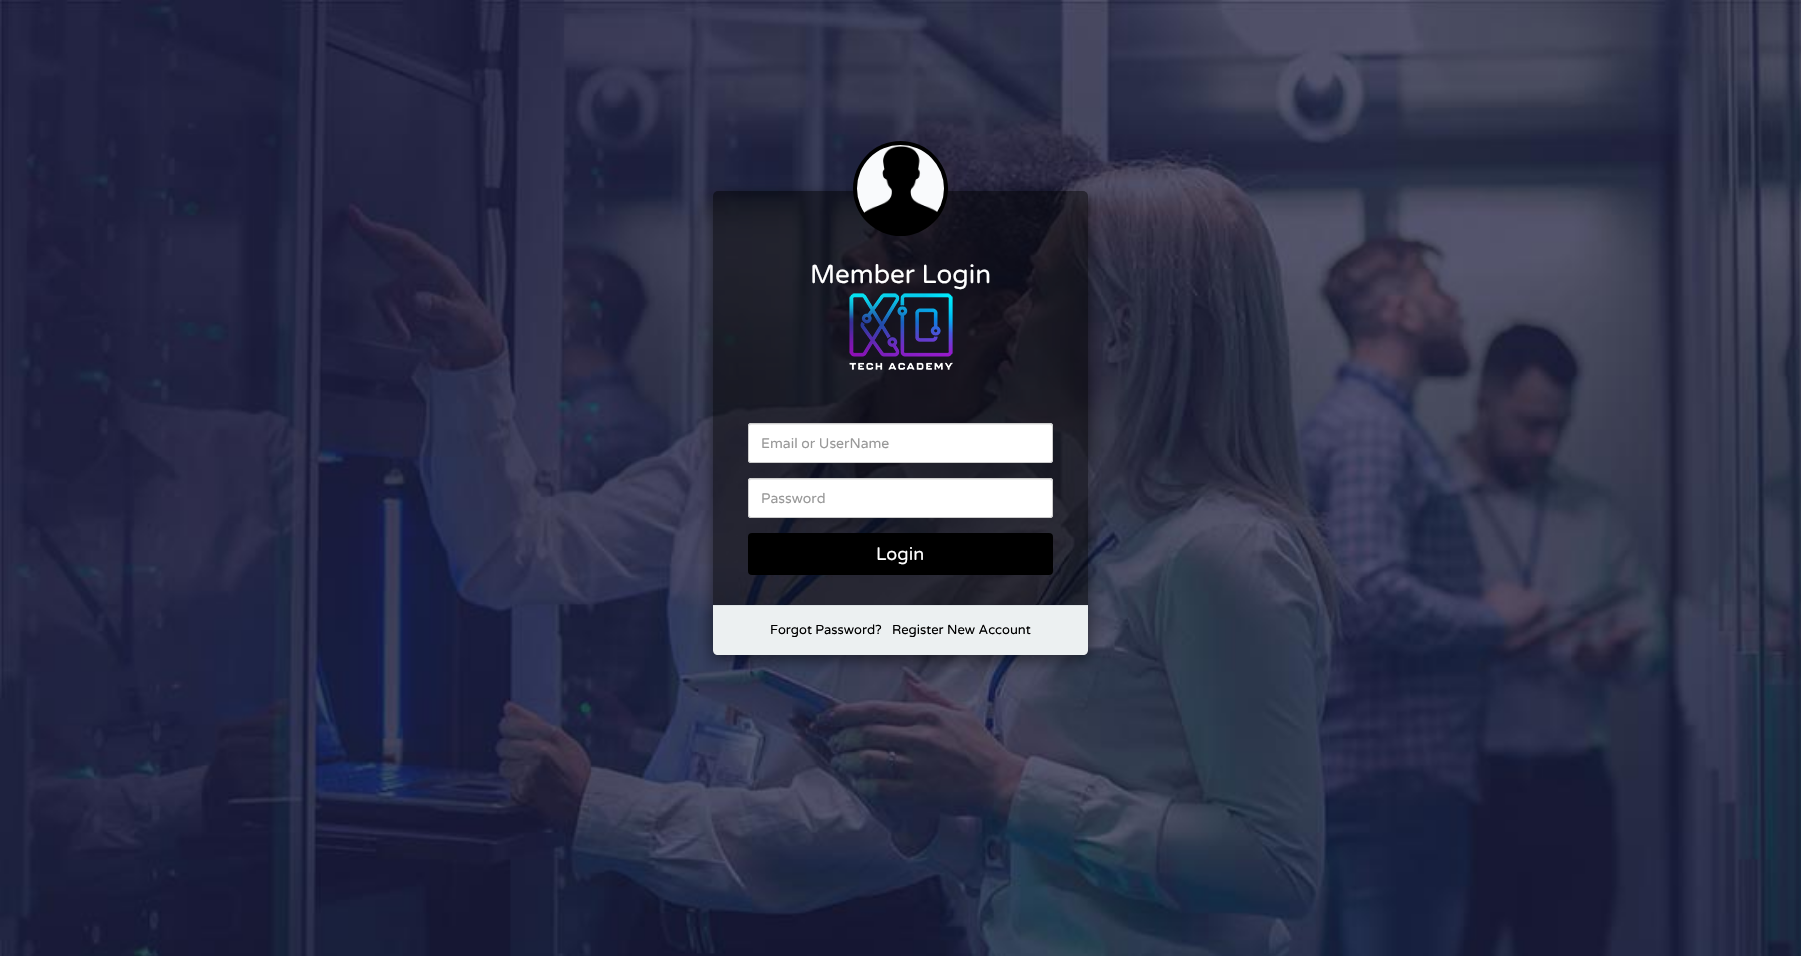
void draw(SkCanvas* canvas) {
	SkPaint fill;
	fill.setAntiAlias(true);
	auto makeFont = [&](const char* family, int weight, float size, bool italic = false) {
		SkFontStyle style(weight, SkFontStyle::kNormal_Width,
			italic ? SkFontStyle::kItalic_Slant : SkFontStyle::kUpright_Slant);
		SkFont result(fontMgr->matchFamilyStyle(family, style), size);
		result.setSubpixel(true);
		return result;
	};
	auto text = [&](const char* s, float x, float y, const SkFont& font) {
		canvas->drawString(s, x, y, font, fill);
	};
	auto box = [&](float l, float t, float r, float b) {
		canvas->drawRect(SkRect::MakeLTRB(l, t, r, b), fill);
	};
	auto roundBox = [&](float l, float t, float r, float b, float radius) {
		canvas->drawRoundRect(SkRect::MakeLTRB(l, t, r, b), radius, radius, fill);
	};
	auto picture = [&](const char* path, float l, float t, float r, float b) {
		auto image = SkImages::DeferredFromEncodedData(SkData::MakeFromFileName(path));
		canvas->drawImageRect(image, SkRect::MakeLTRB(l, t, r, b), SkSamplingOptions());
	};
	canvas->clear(0xFFFFFFFF);
	picture("image0.png", 0, 0, 1801, 956);
	canvas->save();
	canvas->clipPath(SkPathBuilder(SkPathFillType::kEvenOdd).moveTo(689, 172).lineTo(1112, 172).lineTo(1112, 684).lineTo(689, 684).close().moveTo(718, 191).lineTo(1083, 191).cubicTo(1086, 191, 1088, 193, 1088, 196).lineTo(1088, 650).cubicTo(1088, 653, 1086, 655, 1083, 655).lineTo(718, 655).cubicTo(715, 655, 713, 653, 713, 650).lineTo(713, 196).cubicTo(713, 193, 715, 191, 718, 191).close().detach(), true);
	fill.setColor(0x80000000);
	fill.setMaskFilter(SkMaskFilter::MakeBlur(kNormal_SkBlurStyle, 7.5f));
	canvas->drawRoundRect(SkRect::MakeLTRB(713, 196, 1088, 660), 5, 5, fill);
	fill.setMaskFilter(nullptr);
	canvas->restore();
	roundBox(713, 191, 1088, 655, 5);
	fill.setColor(0xFF000000);
	canvas->drawCircle(900.5f, 188.5f, 47.5f, fill);
	picture("image1.png", 857, 145, 944, 213);
	picture("image2.png", 849, 293, 953, 370);
	fill.setColor(0xFFFFFFFF);
	roundBox(748, 423, 1053, 463, 3);
	fill.setColor(0xFFECECEC);
	canvas->drawPath(SkPathBuilder().moveTo(751, 425).lineTo(1050, 425).cubicTo(1051, 425, 1052, 426, 1052, 427).cubicTo(1052, 426, 1052, 424, 1050, 424).lineTo(750, 424).lineTo(749, 427).cubicTo(749, 426, 750, 425, 751, 425).close().detach(), fill);
	fill.setStyle(SkPaint::kStroke_Style);
	fill.setStrokeWidth(1);
	fill.setColor(0xFFCCCCCC);
	canvas->drawRoundRect(SkRect::MakeLTRB(748.5f, 423.5f, 1052.5f, 462.5f), 2.5f, 2.5f, fill);
	fill.setStyle(SkPaint::kFill_Style);
	fill.setColor(0xFFFFFFFF);
	roundBox(748, 478, 1053, 518, 3);
	fill.setColor(0xFFECECEC);
	canvas->drawPath(SkPathBuilder().moveTo(751, 480).lineTo(1050, 480).cubicTo(1051, 480, 1052, 481, 1052, 482).cubicTo(1052, 481, 1052, 479, 1050, 479).lineTo(750, 479).lineTo(749, 482).cubicTo(749, 481, 750, 480, 751, 480).close().detach(), fill);
	fill.setStyle(SkPaint::kStroke_Style);
	fill.setColor(0xFFCCCCCC);
	canvas->drawRoundRect(SkRect::MakeLTRB(748.5f, 478.5f, 1052.5f, 517.5f), 2.5f, 2.5f, fill);
	fill.setStyle(SkPaint::kFill_Style);
	fill.setColor(0xFF000000);
	roundBox(748, 533, 1053, 575, 4);
	fill.setColor(0xFFECF0F1);
	canvas->drawPath(SkPathBuilder().moveTo(713, 605).lineTo(1088, 605).lineTo(1088, 650).cubicTo(1088, 653, 1086, 655, 1083, 655).lineTo(718, 655).cubicTo(715, 655, 713, 653, 713, 650).close().detach(), fill);
	fill.setColor(0xFFDEE4E7);
	box(713, 605, 1088, 606);
	auto font1 = makeFont("Varela Round", 400, 26);
	fill.setColor(0xFFFFFFFF);
	text("Member Login", 810, 283, font1);
	auto font2 = makeFont("Varela Round", 400, 14);
	fill.setColor(0xFF999999);
	text("Email or UserName", 761, 448, font2);
	text("Password", 761, 503, font2);
	auto font3 = makeFont("Varela Round", 400, 18);
	fill.setColor(0xFFFFFFFF);
	text("Login", 876, 560, font3);
	auto font4 = makeFont("Varela Round", 400, 13);
	fill.setColor(0xFF000000);
	text("Forgot Password?", 770, 634, font4);
	text("Register New Account", 892, 634, font4);
}
